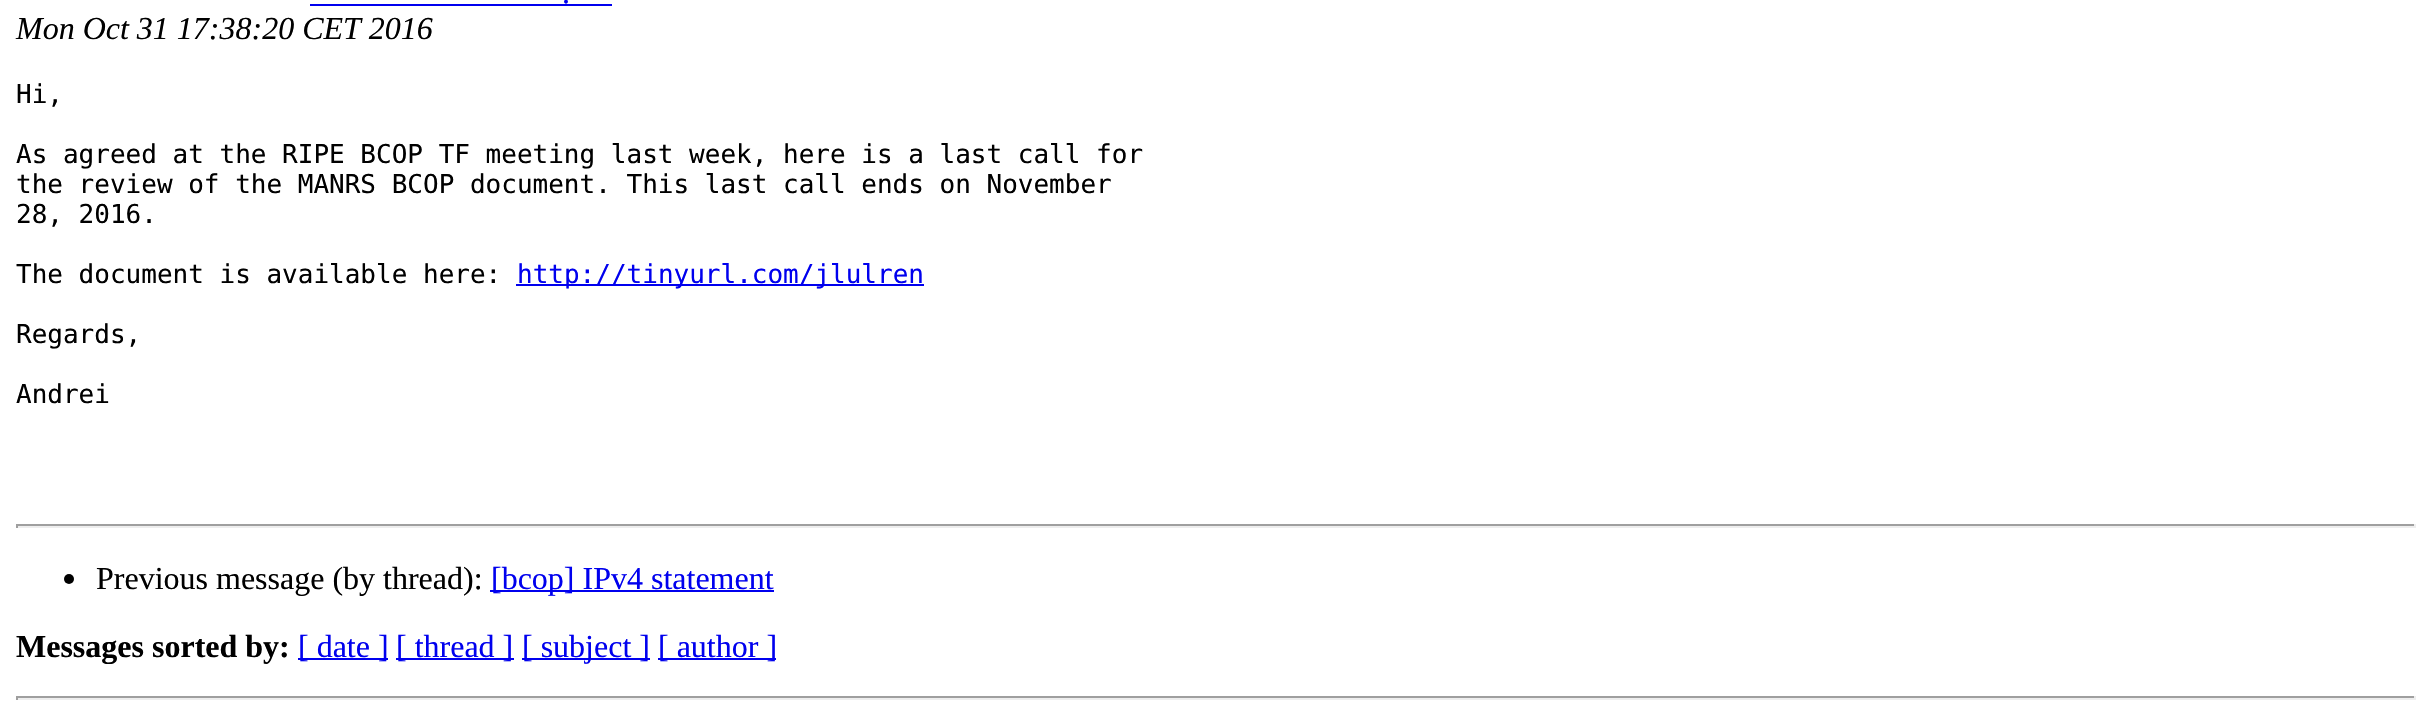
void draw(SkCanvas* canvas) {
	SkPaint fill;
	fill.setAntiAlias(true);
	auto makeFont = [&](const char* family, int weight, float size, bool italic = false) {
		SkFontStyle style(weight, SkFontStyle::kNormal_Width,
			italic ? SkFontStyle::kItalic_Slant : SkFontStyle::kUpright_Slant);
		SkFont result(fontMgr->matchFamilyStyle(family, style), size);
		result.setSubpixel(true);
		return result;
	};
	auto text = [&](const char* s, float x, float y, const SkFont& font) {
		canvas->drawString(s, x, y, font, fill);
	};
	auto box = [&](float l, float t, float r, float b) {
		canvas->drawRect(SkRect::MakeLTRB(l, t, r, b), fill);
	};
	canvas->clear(0xFFFFFFFF);
	fill.setColor(0xFF0000EE);
	box(310, 4, 612, 6);
	box(516, 284, 924, 286);
	fill.setColor(0xFF9F9F9F);
	box(16, 524, 2416, 526);
	fill.setColor(0xFFEEEEEE);
	box(2414, 524, 2416, 528);
	box(16, 526, 2416, 528);
	fill.setColor(0xFF9F9F9F);
	box(16, 524, 18, 528);
	fill.setColor(0xFF000000);
	canvas->drawCircle(69, 579, 5, fill);
	fill.setColor(0xFF0000EE);
	box(490, 590, 774, 592);
	box(298, 658, 388, 660);
	box(396, 658, 514, 660);
	box(522, 658, 650, 660);
	box(658, 658, 776, 660);
	fill.setColor(0xFF9F9F9F);
	box(16, 696, 2416, 698);
	fill.setColor(0xFFEEEEEE);
	box(2414, 696, 2416, 700);
	box(16, 698, 2416, 700);
	fill.setColor(0xFF9F9F9F);
	box(16, 696, 18, 700);
	auto font1 = makeFont("Liberation Serif", 400, 32);
	fill.setColor(0xFF0000EE);
	text(".", 562, 3, font1);
	auto font2 = makeFont("Liberation Serif", 400, 32, true);
	fill.setColor(0xFF000000);
	text("Mon Oct 31 17:38:20 CET 2016", 16, 39, font2);
	auto font3 = makeFont("DejaVu Sans Mono", 400, 26);
	text("Hi,", 16, 103, font3);
	text("As agreed at the RIPE BCOP TF meeting last week, here is a last call for", 16, 163, font3);
	text("the review of the MANRS BCOP document. This last call ends on November", 16, 193, font3);
	text("28, 2016.", 16, 223, font3);
	text("The document is available here:", 16, 283, font3);
	fill.setColor(0xFF0000EE);
	text("http://tinyurl.com/jlulren", 517, 283, font3);
	fill.setColor(0xFF000000);
	text("Regards,", 16, 343, font3);
	text("Andrei", 16, 403, font3);
	text("Previous message (by thread):", 96, 589, font1);
	fill.setColor(0xFF0000EE);
	text("[bcop] IPv4 statement", 491, 589, font1);
	auto font4 = makeFont("Liberation Serif", 700, 32);
	fill.setColor(0xFF000000);
	text("Messages sorted by:", 16, 657, font4);
	fill.setColor(0xFF0000EE);
	text("[ date ]", 298, 657, font1);
	text("[ thread ]", 396, 657, font1);
	text("[ subject ]", 522, 657, font1);
	text("[ author ]", 658, 657, font1);
}
